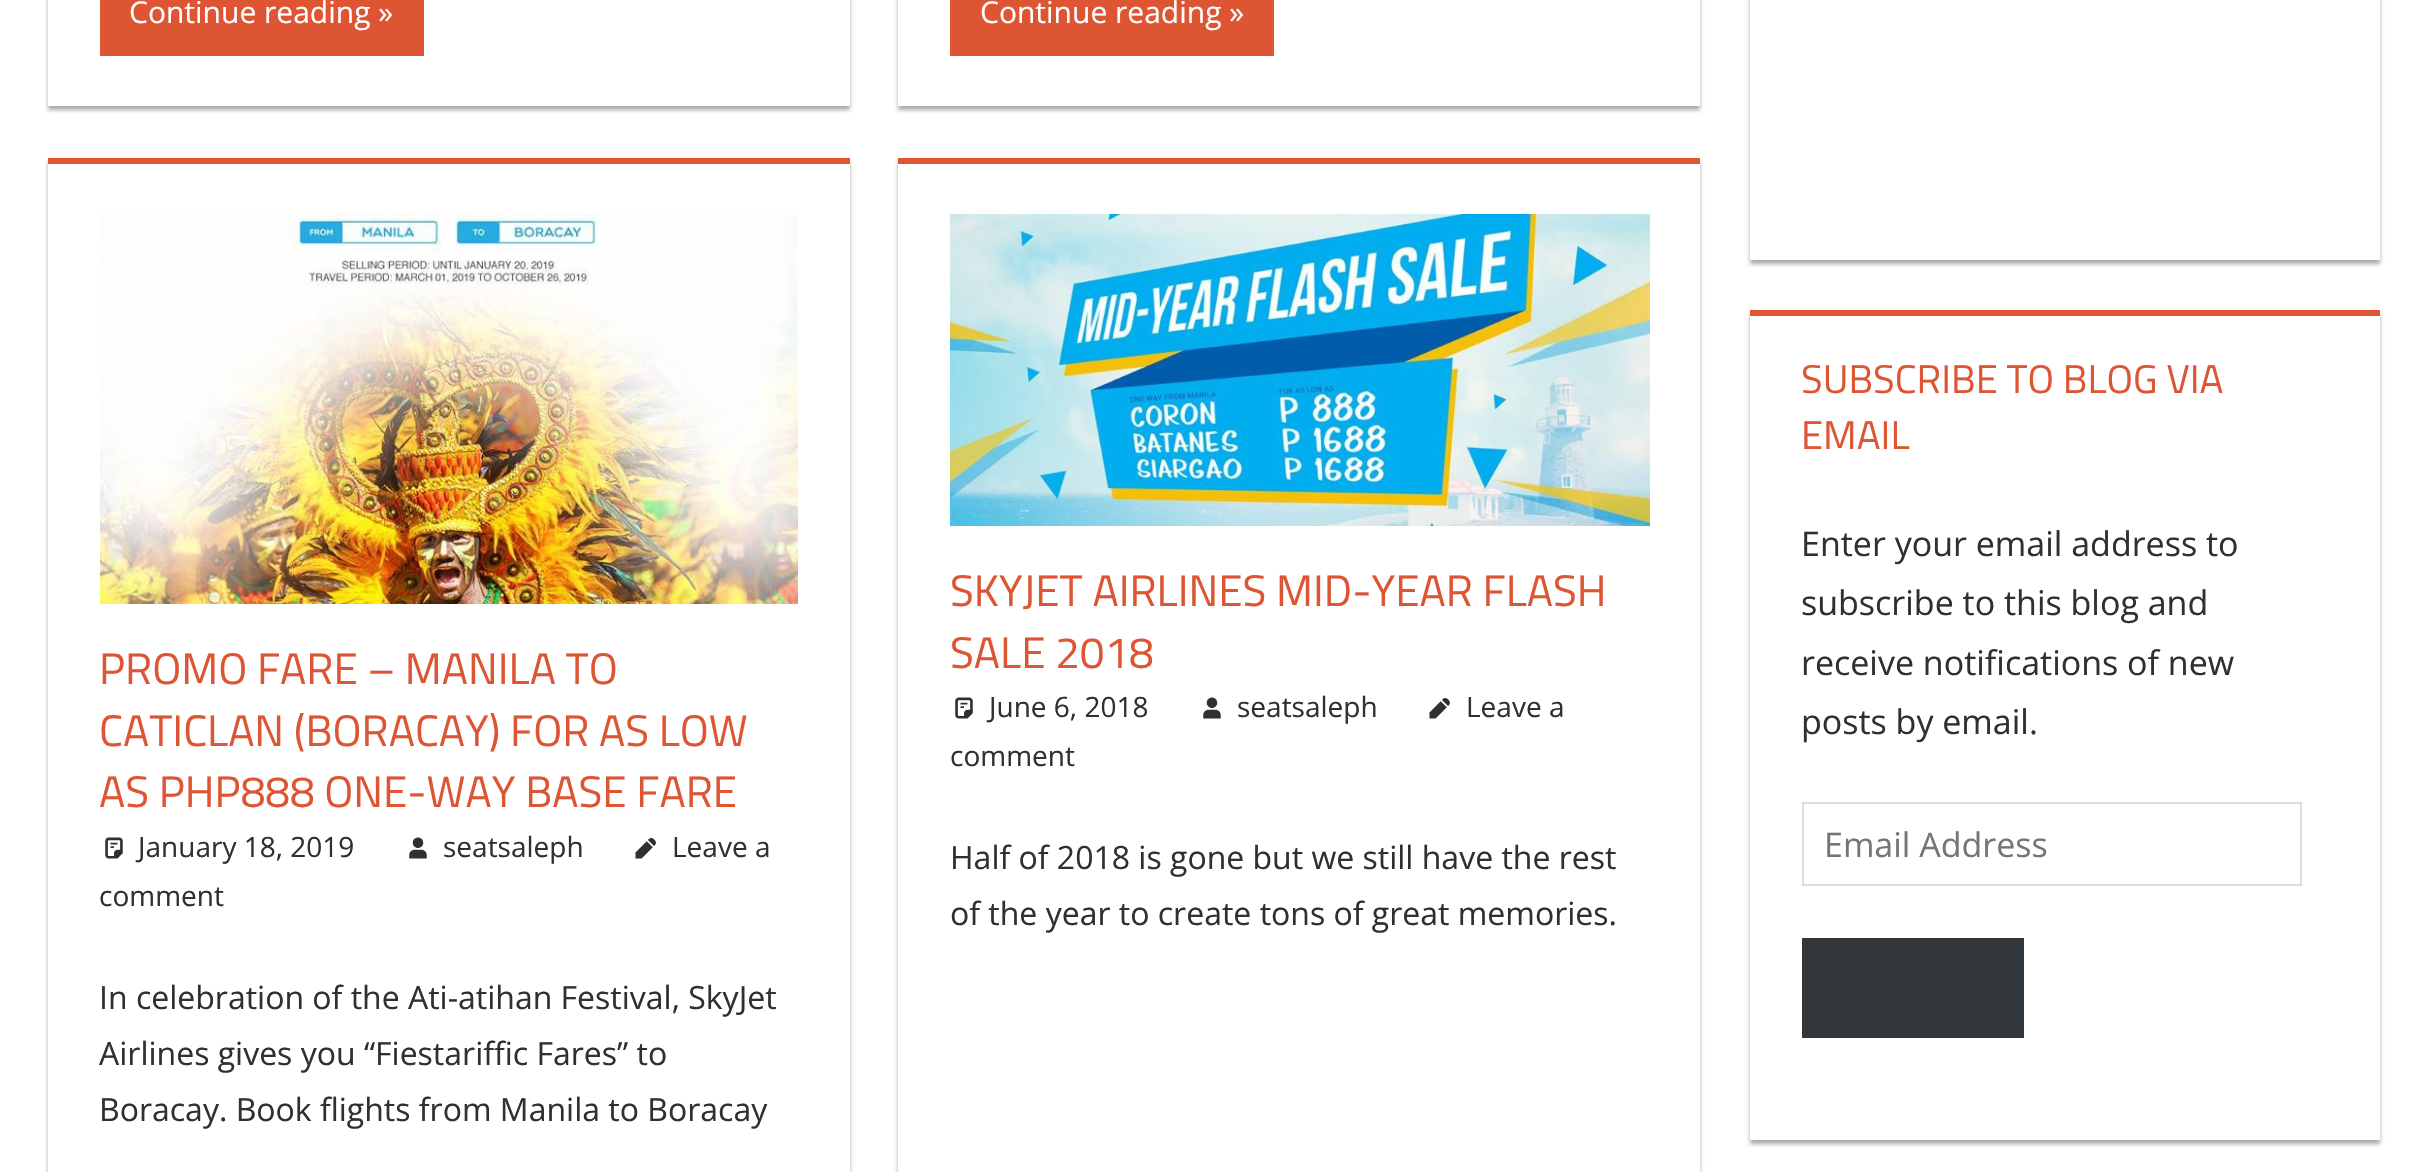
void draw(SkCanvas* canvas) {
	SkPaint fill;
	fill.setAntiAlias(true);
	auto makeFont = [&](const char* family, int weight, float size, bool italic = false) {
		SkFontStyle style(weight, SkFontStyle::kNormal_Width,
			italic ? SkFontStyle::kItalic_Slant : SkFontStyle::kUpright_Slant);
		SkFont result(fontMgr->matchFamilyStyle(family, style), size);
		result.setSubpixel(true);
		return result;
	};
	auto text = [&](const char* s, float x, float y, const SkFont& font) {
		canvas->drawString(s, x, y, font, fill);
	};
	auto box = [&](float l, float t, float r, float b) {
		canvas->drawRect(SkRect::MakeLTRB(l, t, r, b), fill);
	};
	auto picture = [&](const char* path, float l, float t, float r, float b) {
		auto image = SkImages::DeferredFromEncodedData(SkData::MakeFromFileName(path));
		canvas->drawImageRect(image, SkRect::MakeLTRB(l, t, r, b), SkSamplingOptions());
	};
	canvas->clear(0xFFFFFFFF);
	canvas->save();
	canvas->clipPath(SkPathBuilder(SkPathFillType::kEvenOdd).moveTo(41, 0).lineTo(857, 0).lineTo(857, 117).lineTo(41, 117).close().moveTo(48, -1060).lineTo(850, -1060).lineTo(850, 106).lineTo(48, 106).close().detach(), true);
	fill.setColor(0xFFAAAAAA);
	fill.setMaskFilter(SkMaskFilter::MakeBlur(kNormal_SkBlurStyle, 2));
	canvas->drawRect(SkRect::MakeLTRB(48, -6, 850, 110), fill);
	fill.setMaskFilter(nullptr);
	canvas->restore();
	fill.setColor(0xFFDD5533);
	box(100, 0, 424, 56);
	canvas->save();
	canvas->clipPath(SkPathBuilder(SkPathFillType::kEvenOdd).moveTo(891, 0).lineTo(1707, 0).lineTo(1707, 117).lineTo(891, 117).close().moveTo(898, -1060).lineTo(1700, -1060).lineTo(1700, 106).lineTo(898, 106).close().detach(), true);
	fill.setColor(0xFFAAAAAA);
	fill.setMaskFilter(SkMaskFilter::MakeBlur(kNormal_SkBlurStyle, 2));
	canvas->drawRect(SkRect::MakeLTRB(898, -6, 1700, 110), fill);
	fill.setMaskFilter(nullptr);
	canvas->restore();
	fill.setColor(0xFFDD5533);
	box(950, 0, 1274, 56);
	canvas->save();
	canvas->clipPath(SkPathBuilder(SkPathFillType::kEvenOdd).moveTo(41, 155).lineTo(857, 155).lineTo(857, 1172).lineTo(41, 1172).close().moveTo(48, 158).lineTo(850, 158).lineTo(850, 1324).lineTo(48, 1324).close().detach(), true);
	fill.setColor(0xFFAAAAAA);
	fill.setMaskFilter(SkMaskFilter::MakeBlur(kNormal_SkBlurStyle, 2));
	canvas->drawRect(SkRect::MakeLTRB(48, 162, 850, 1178), fill);
	fill.setMaskFilter(nullptr);
	canvas->restore();
	fill.setColor(0xFFDD5533);
	box(48, 158, 850, 164);
	picture("image0.png", 100, 214, 798, 604);
	picture("image1.png", 105, 837, 123, 859);
	picture("image2.png", 409, 837, 427, 859);
	picture("image3.png", 635, 838, 656, 859);
	canvas->save();
	canvas->clipPath(SkPathBuilder(SkPathFillType::kEvenOdd).moveTo(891, 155).lineTo(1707, 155).lineTo(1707, 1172).lineTo(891, 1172).close().moveTo(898, 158).lineTo(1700, 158).lineTo(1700, 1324).lineTo(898, 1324).close().detach(), true);
	fill.setColor(0xFFAAAAAA);
	fill.setMaskFilter(SkMaskFilter::MakeBlur(kNormal_SkBlurStyle, 2));
	canvas->drawRect(SkRect::MakeLTRB(898, 162, 1700, 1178), fill);
	fill.setMaskFilter(nullptr);
	canvas->restore();
	fill.setColor(0xFFDD5533);
	box(898, 158, 1700, 164);
	picture("image4.png", 950, 214, 1650, 526);
	picture("image1.png", 955, 697, 973, 719);
	picture("image2.png", 1203, 697, 1221, 719);
	picture("image3.png", 1429, 698, 1450, 719);
	canvas->save();
	canvas->clipPath(SkPathBuilder(SkPathFillType::kEvenOdd).moveTo(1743, 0).lineTo(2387, 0).lineTo(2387, 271).lineTo(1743, 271).close().moveTo(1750, -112).lineTo(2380, -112).lineTo(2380, 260).lineTo(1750, 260).close().detach(), true);
	fill.setColor(0xFFAAAAAA);
	fill.setMaskFilter(SkMaskFilter::MakeBlur(kNormal_SkBlurStyle, 2));
	canvas->drawRect(SkRect::MakeLTRB(1750, -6, 2380, 264), fill);
	fill.setMaskFilter(nullptr);
	canvas->restore();
	canvas->save();
	canvas->clipPath(SkPathBuilder(SkPathFillType::kEvenOdd).moveTo(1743, 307).lineTo(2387, 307).lineTo(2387, 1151).lineTo(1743, 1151).close().moveTo(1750, 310).lineTo(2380, 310).lineTo(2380, 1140).lineTo(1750, 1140).close().detach(), true);
	fill.setMaskFilter(SkMaskFilter::MakeBlur(kNormal_SkBlurStyle, 2));
	canvas->drawRect(SkRect::MakeLTRB(1750, 314, 2380, 1144), fill);
	fill.setMaskFilter(nullptr);
	canvas->restore();
	fill.setColor(0xFFDD5533);
	box(1750, 310, 2380, 316);
	fill.setStyle(SkPaint::kStroke_Style);
	fill.setStrokeWidth(2);
	fill.setColor(0xFFDDDDDD);
	canvas->drawRect(SkRect::MakeLTRB(1803, 803, 2301, 885), fill);
	fill.setStyle(SkPaint::kFill_Style);
	fill.setColor(0xFF32373C);
	box(1802, 938, 2024, 1038);
	auto font1 = makeFont("Open Sans", 400, 30);
	fill.setColor(0xFFFFFFFF);
	text("Continue reading »", 129, 23, font1);
	text("Continue reading »", 980, 23, font1);
	auto font2 = makeFont("Titillium Web", 400, 44);
	fill.setColor(0xFFDD5533);
	text("PROMO FARE – MANILA TO", 99, 684, font2);
	text("CATICLAN (BORACAY) FOR AS LOW", 99, 746, font2);
	text("AS PHP888 ONE-WAY BASE FARE", 99, 807, font2);
	auto font3 = makeFont("Open Sans", 400, 28);
	fill.setColor(0xFF303030);
	text("January 18, 2019", 138, 857, font3);
	text("seatsaleph", 443, 857, font3);
	text("Leave a", 672, 857, font3);
	text("comment", 99, 906, font3);
	auto font4 = makeFont("Open Sans", 400, 32);
	text("In celebration of the Ati-atihan Festival, SkyJet", 99, 1009, font4);
	text("Airlines gives you “Fiestariffic Fares” to", 99, 1065, font4);
	text("Boracay. Book flights from Manila to Boracay", 99, 1121, font4);
	fill.setColor(0xFFDD5533);
	text("SKYJET AIRLINES MID-YEAR FLASH", 950, 606, font2);
	text("SALE 2018", 950, 668, font2);
	fill.setColor(0xFF303030);
	text("June 6, 2018", 989, 717, font3);
	text("seatsaleph", 1237, 717, font3);
	text("Leave a", 1466, 717, font3);
	text("comment", 950, 766, font3);
	text("Half of 2018 is gone but we still have the rest", 950, 869, font4);
	text("of the year to create tons of great memories.", 950, 925, font4);
	auto font5 = makeFont("Titillium Web", 400, 40);
	fill.setColor(0xFFDD5533);
	text("SUBSCRIBE TO BLOG VIA", 1801, 393, font5);
	text("EMAIL", 1801, 449, font5);
	auto font6 = makeFont("Open Sans", 400, 34);
	fill.setColor(0xFF303030);
	text("Enter your email address to", 1801, 556, font6);
	text("subscribe to this blog and", 1801, 615, font6);
	text("receive notifications of new", 1801, 675, font6);
	text("posts by email.", 1801, 734, font6);
	fill.setColor(0xFF757575);
	text("Email Address", 1824, 857, font6);
}
